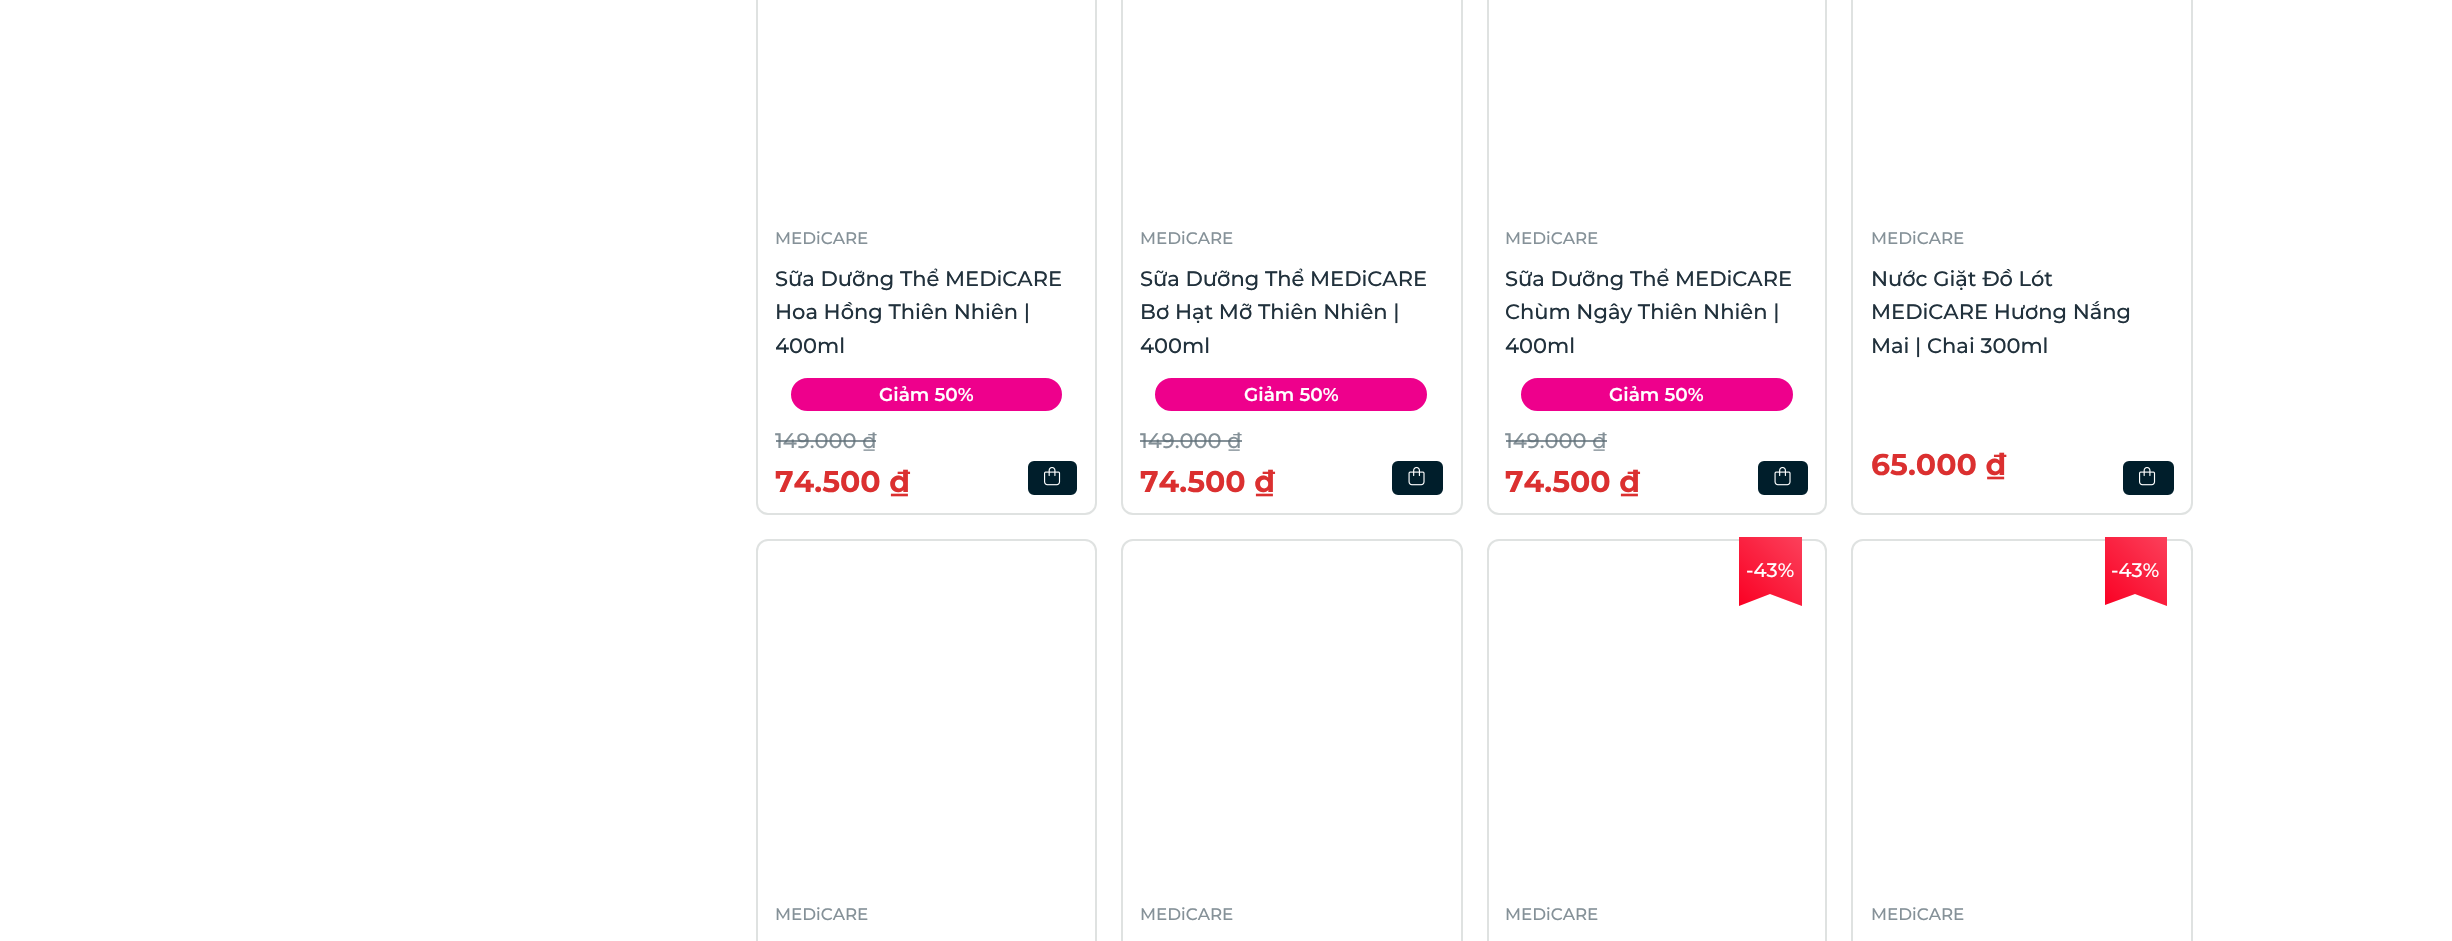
void draw(SkCanvas* canvas) {
	SkPaint fill;
	fill.setAntiAlias(true);
	auto makeFont = [&](const char* family, int weight, float size, bool italic = false) {
		SkFontStyle style(weight, SkFontStyle::kNormal_Width,
			italic ? SkFontStyle::kItalic_Slant : SkFontStyle::kUpright_Slant);
		SkFont result(fontMgr->matchFamilyStyle(family, style), size);
		result.setSubpixel(true);
		return result;
	};
	auto text = [&](const char* s, float x, float y, const SkFont& font) {
		canvas->drawString(s, x, y, font, fill);
	};
	auto box = [&](float l, float t, float r, float b) {
		canvas->drawRect(SkRect::MakeLTRB(l, t, r, b), fill);
	};
	auto picture = [&](const char* path, float l, float t, float r, float b) {
		auto image = SkImages::DeferredFromEncodedData(SkData::MakeFromFileName(path));
		canvas->drawImageRect(image, SkRect::MakeLTRB(l, t, r, b), SkSamplingOptions());
	};
	canvas->clear(0xFFFFFFFF);
	fill.setStyle(SkPaint::kStroke_Style);
	fill.setStrokeWidth(2);
	fill.setColor(0xFFDFE2E1);
	canvas->drawRoundRect(SkRect::MakeLTRB(757, -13, 1096, 514), 11, 11, fill);
	fill.setStyle(SkPaint::kFill_Style);
	fill.setColor(0xFFEE008C);
	canvas->drawRoundRect(SkRect::MakeLTRB(792, 379, 1061, 410), 15.5f, 15.5f, fill);
	fill.setStyle(SkPaint::kStroke_Style);
	canvas->drawRoundRect(SkRect::MakeLTRB(792, 379, 1061, 410), 15.5f, 15.5f, fill);
	fill.setStyle(SkPaint::kFill_Style);
	fill.setColor(0xFF001E2B);
	canvas->drawRoundRect(SkRect::MakeLTRB(1029, 462, 1076, 494), 5, 5, fill);
	fill.setStyle(SkPaint::kStroke_Style);
	canvas->drawRoundRect(SkRect::MakeLTRB(1029, 462, 1076, 494), 5, 5, fill);
	picture("image0.png", 1044, 467, 1061, 486);
	fill.setColor(0xFFDFE2E1);
	canvas->drawRoundRect(SkRect::MakeLTRB(1122, -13, 1462, 514), 11, 11, fill);
	fill.setStyle(SkPaint::kFill_Style);
	fill.setColor(0xFFEE008C);
	canvas->drawRoundRect(SkRect::MakeLTRB(1156, 379, 1426, 410), 15.5f, 15.5f, fill);
	fill.setStyle(SkPaint::kStroke_Style);
	canvas->drawRoundRect(SkRect::MakeLTRB(1156, 379, 1426, 410), 15.5f, 15.5f, fill);
	fill.setStyle(SkPaint::kFill_Style);
	fill.setColor(0xFF001E2B);
	canvas->drawRoundRect(SkRect::MakeLTRB(1393, 462, 1442, 494), 5, 5, fill);
	fill.setStyle(SkPaint::kStroke_Style);
	canvas->drawRoundRect(SkRect::MakeLTRB(1393, 462, 1442, 494), 5, 5, fill);
	picture("image1.png", 1408, 466, 1425, 486);
	fill.setColor(0xFFDFE2E1);
	canvas->drawRoundRect(SkRect::MakeLTRB(1488, -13, 1826, 514), 11, 11, fill);
	fill.setStyle(SkPaint::kFill_Style);
	fill.setColor(0xFFEE008C);
	canvas->drawRoundRect(SkRect::MakeLTRB(1522, 379, 1792, 410), 15.5f, 15.5f, fill);
	fill.setStyle(SkPaint::kStroke_Style);
	canvas->drawRoundRect(SkRect::MakeLTRB(1522, 379, 1792, 410), 15.5f, 15.5f, fill);
	fill.setStyle(SkPaint::kFill_Style);
	fill.setColor(0xFF001E2B);
	canvas->drawRoundRect(SkRect::MakeLTRB(1759, 462, 1807, 494), 5, 5, fill);
	fill.setStyle(SkPaint::kStroke_Style);
	canvas->drawRoundRect(SkRect::MakeLTRB(1759, 462, 1807, 494), 5, 5, fill);
	picture("image1.png", 1774, 466, 1791, 486);
	fill.setColor(0xFFDFE2E1);
	canvas->drawRoundRect(SkRect::MakeLTRB(1852, -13, 2192, 514), 11, 11, fill);
	fill.setStyle(SkPaint::kFill_Style);
	fill.setColor(0xFF001E2B);
	canvas->drawRoundRect(SkRect::MakeLTRB(2124, 462, 2173, 494), 5, 5, fill);
	fill.setStyle(SkPaint::kStroke_Style);
	canvas->drawRoundRect(SkRect::MakeLTRB(2124, 462, 2173, 494), 5, 5, fill);
	picture("image0.png", 2139, 467, 2156, 486);
	fill.setColor(0xFFDFE2E1);
	canvas->drawRoundRect(SkRect::MakeLTRB(757, 540, 1096, 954), 11, 11, fill);
	canvas->drawRoundRect(SkRect::MakeLTRB(1122, 540, 1462, 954), 11, 11, fill);
	canvas->drawRoundRect(SkRect::MakeLTRB(1488, 540, 1826, 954), 11, 11, fill);
	fill.setStyle(SkPaint::kFill_Style);
	fill.setColor(0xFFFA0023);
	canvas->drawPath(SkPathBuilder().moveTo(1739, 537).lineTo(1802, 537).lineTo(1802, 606).lineTo(1770, 594).lineTo(1739, 606).close().detach(), fill);
	{
		const SkColor colors[] = {0x00FFFFFF, 0x40FFFFFF};
		const float stops[] = {0, 1};
		const SkPoint ends[] = {{1737, 605}, {1803, 539}};
		fill.setShader(SkGradientShader::MakeLinear(ends, colors, stops, 2, SkTileMode::kClamp));
		fill.setAlpha(255);
	}
	canvas->drawPath(SkPathBuilder().moveTo(1739, 537).lineTo(1802, 537).lineTo(1802, 606).lineTo(1770, 594).lineTo(1739, 606).close().detach(), fill);
	fill.setStyle(SkPaint::kStroke_Style);
	fill.setShader(nullptr);
	fill.setColor(0xFFDFE2E1);
	canvas->drawRoundRect(SkRect::MakeLTRB(1852, 540, 2192, 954), 11, 11, fill);
	fill.setStyle(SkPaint::kFill_Style);
	fill.setColor(0xFFFA0023);
	canvas->drawPath(SkPathBuilder().moveTo(2105, 537).lineTo(2167, 537).lineTo(2167, 606).lineTo(2135, 594).lineTo(2105, 605).close().detach(), fill);
	{
		const SkColor colors[] = {0x00FFFFFF, 0x40FFFFFF};
		const float stops[] = {0, 1};
		const SkPoint ends[] = {{2103, 605}, {2169, 539}};
		fill.setShader(SkGradientShader::MakeLinear(ends, colors, stops, 2, SkTileMode::kClamp));
		fill.setAlpha(255);
	}
	canvas->drawPath(SkPathBuilder().moveTo(2105, 537).lineTo(2167, 537).lineTo(2167, 606).lineTo(2135, 594).lineTo(2105, 605).close().detach(), fill);
	auto font1 = makeFont("Montserrat", 500, 16.75f);
	fill.setShader(nullptr);
	fill.setColor(0xFF859198);
	text("MEDiCARE", 775, 244, font1);
	auto font2 = makeFont("Montserrat", 500, 21);
	fill.setColor(0xFF21313C);
	text("Sữa Dưỡng Thể MEDiCARE", 775, 286, font2);
	text("Hoa Hồng Thiên Nhiên |", 775, 319, font2);
	canvas->save();
	canvas->clipRect(SkRect::MakeLTRB(776, 261, 1077, 363));
	text("400ml", 775, 353, font2);
	canvas->restore();
	auto font3 = makeFont("Montserrat", 600, 18.5f);
	fill.setColor(0xFFFFFFFF);
	text("Giảm 50%", 879, 401, font3);
	fill.setColor(0xFF859198);
	text("149.000 ₫", 775, 448, font2);
	fill.setColor(0xBF5C6C75);
	box(776, 440, 876, 442);
	auto font4 = makeFont("Montserrat", 700, 30);
	fill.setColor(0xFFDB3030);
	text("74.500 ₫", 775, 492, font4);
	fill.setColor(0xFF859198);
	text("MEDiCARE", 1140, 244, font1);
	fill.setColor(0xFF21313C);
	text("Sữa Dưỡng Thể MEDiCARE", 1140, 286, font2);
	text("Bơ Hạt Mỡ Thiên Nhiên |", 1140, 319, font2);
	text("400ml", 1140, 353, font2);
	fill.setColor(0xFFFFFFFF);
	text("Giảm 50%", 1244, 401, font3);
	fill.setColor(0xFF859198);
	text("149.000 ₫", 1140, 448, font2);
	fill.setColor(0xBF5C6C75);
	box(1140, 440, 1242, 442);
	fill.setColor(0xFFDB3030);
	text("74.500 ₫", 1140, 492, font4);
	fill.setColor(0xFF859198);
	text("MEDiCARE", 1505, 244, font1);
	fill.setColor(0xFF21313C);
	text("Sữa Dưỡng Thể MEDiCARE", 1505, 286, font2);
	text("Chùm Ngây Thiên Nhiên |", 1505, 319, font2);
	text("400ml", 1505, 353, font2);
	fill.setColor(0xFFFFFFFF);
	text("Giảm 50%", 1609, 401, font3);
	fill.setColor(0xFF859198);
	text("149.000 ₫", 1505, 448, font2);
	fill.setColor(0xBF5C6C75);
	box(1506, 440, 1607, 442);
	fill.setColor(0xFFDB3030);
	text("74.500 ₫", 1505, 492, font4);
	fill.setColor(0xFF859198);
	text("MEDiCARE", 1871, 244, font1);
	fill.setColor(0xFF21313C);
	text("Nước Giặt Đồ Lót", 1871, 286, font2);
	text("MEDiCARE Hương Nắng", 1871, 319, font2);
	text("Mai | Chai 300ml", 1871, 353, font2);
	fill.setColor(0xFFDB3030);
	text("65.000 ₫", 1871, 475, font4);
	fill.setColor(0xFF859198);
	text("MEDiCARE", 775, 920, font1);
	text("MEDiCARE", 1140, 920, font1);
	auto font5 = makeFont("Montserrat", 500, 19.5f);
	fill.setColor(0xFFFFFFFF);
	text("-43%", 1746, 577, font5);
	fill.setColor(0xFF859198);
	text("MEDiCARE", 1505, 920, font1);
	fill.setColor(0xFFFFFFFF);
	text("-43%", 2111, 577, font5);
	fill.setColor(0xFF859198);
	text("MEDiCARE", 1871, 920, font1);
}
